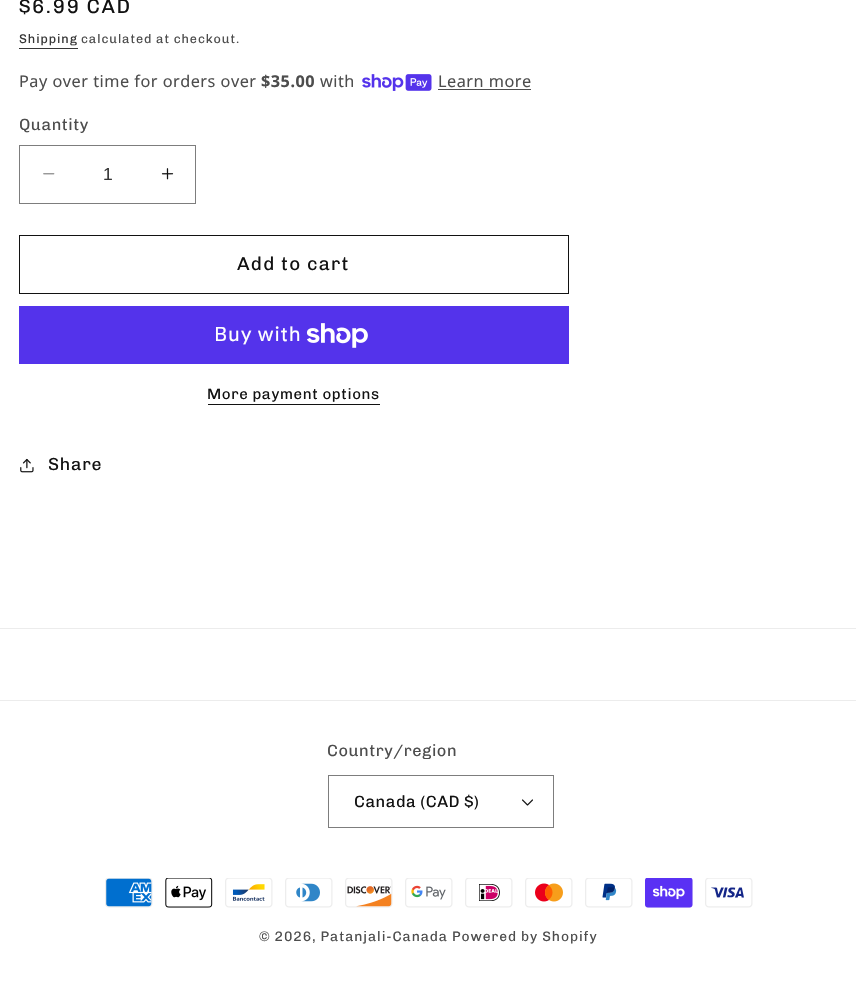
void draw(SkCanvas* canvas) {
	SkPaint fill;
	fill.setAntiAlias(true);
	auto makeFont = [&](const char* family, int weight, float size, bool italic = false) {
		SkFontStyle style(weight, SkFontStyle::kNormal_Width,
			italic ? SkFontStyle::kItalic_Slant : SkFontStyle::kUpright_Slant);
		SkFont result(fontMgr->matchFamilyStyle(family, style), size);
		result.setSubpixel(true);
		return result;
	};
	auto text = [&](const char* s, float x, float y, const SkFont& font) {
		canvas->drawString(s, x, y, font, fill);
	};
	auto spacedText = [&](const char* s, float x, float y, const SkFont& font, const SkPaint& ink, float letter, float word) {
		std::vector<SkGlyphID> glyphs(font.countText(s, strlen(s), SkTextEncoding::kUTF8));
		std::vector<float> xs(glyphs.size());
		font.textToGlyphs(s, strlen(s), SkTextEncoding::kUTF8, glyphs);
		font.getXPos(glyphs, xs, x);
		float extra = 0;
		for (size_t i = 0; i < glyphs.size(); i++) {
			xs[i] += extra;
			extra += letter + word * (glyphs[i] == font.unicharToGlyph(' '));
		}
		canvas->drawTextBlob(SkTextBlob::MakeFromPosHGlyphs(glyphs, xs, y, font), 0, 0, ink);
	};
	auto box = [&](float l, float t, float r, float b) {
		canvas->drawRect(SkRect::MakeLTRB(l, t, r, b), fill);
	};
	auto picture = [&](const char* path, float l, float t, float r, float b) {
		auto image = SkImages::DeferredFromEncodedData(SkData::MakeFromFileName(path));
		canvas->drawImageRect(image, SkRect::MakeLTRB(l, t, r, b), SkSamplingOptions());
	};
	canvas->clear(0xFFFFFFFF);
	fill.setColor(0xFF363636);
	box(19, 48, 78, 49);
	picture("image0.png", 362, 74, 432, 91);
	fill.setColor(0xFF4D4D4D);
	box(438, 89, 531, 90);
	picture("image1.png", 43, 173, 55, 175);
	picture("image2.png", 161, 168, 174, 180);
	fill.setStyle(SkPaint::kStroke_Style);
	fill.setStrokeWidth(1);
	fill.setColor(0xFF7D7D7D);
	canvas->drawRect(SkRect::MakeLTRB(19.5f, 145.5f, 195.5f, 203.5f), fill);
	fill.setColor(0xFF121212);
	canvas->drawRect(SkRect::MakeLTRB(19.5f, 235.5f, 568.5f, 293.5f), fill);
	fill.setStyle(SkPaint::kFill_Style);
	fill.setColor(0xFF5433EB);
	box(19, 306, 569, 364);
	picture("image3.png", 306, 323, 368, 348);
	fill.setColor(0xFF121212);
	box(208, 404, 380, 405);
	picture("image4.png", 20, 458, 34, 473);
	fill.setColor(0xFFECECEC);
	box(0, 628, 856, 629);
	box(0, 700, 856, 701);
	picture("image5.png", 522, 799, 533, 806);
	fill.setStyle(SkPaint::kStroke_Style);
	fill.setColor(0xFF7D7D7D);
	canvas->drawRect(SkRect::MakeLTRB(328.5f, 775.5f, 553.5f, 827.5f), fill);
	picture("image6.png", 105, 878, 153, 908);
	picture("image7.png", 165, 878, 213, 908);
	picture("image8.png", 225, 878, 273, 908);
	picture("image9.png", 285, 878, 333, 908);
	picture("image10.png", 345, 878, 393, 908);
	picture("image11.png", 405, 878, 453, 908);
	picture("image12.png", 465, 878, 513, 908);
	picture("image13.png", 525, 878, 573, 908);
	picture("image14.png", 585, 878, 633, 908);
	picture("image15.png", 645, 878, 693, 908);
	picture("image16.png", 705, 878, 753, 908);
	auto font1 = makeFont("Chivo", 400, 20);
	fill.setStyle(SkPaint::kFill_Style);
	fill.setColor(0xFF121212);
	spacedText("$6.99 CAD", 19, 13, font1, fill, 1.6f, 0);
	auto font2 = makeFont("Chivo", 400, 12.5f);
	fill.setColor(0xFF363636);
	spacedText("Shipping", 19, 43, font2, fill, 0.9f, 0);
	fill.setColor(0xFF4D4D4D);
	spacedText("calculated at checkout.", 81, 43, font2, fill, 0.9f, 0);
	auto font3 = makeFont("Noto Sans", 400, 16.25f);
	spacedText("Pay over time for orders over", 19, 87, font3, fill, 0.5f, 0);
	auto font4 = makeFont("Noto Sans", 700, 16.25f);
	spacedText("$35.00", 261, 87, font4, fill, 0.5f, 0);
	spacedText("with", 320, 87, font3, fill, 0.5f, 0);
	spacedText("Learn more", 438, 87, font3, fill, 0.5f, 0);
	auto font5 = makeFont("Chivo", 400, 16.25f);
	spacedText("Quantity", 19, 130, font5, fill, 0.5f, 0);
	auto font6 = makeFont("Liberation Sans", 400, 17.5f);
	fill.setColor(0xFF363636);
	text("1", 103, 180, font6);
	auto font7 = makeFont("Chivo", 400, 18.75f);
	fill.setColor(0xFF121212);
	spacedText("Add to cart", 237, 270, font7, fill, 1.25f, 0);
	auto font8 = makeFont("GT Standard", 400, 20);
	fill.setColor(0xFFFFFFFF);
	spacedText("Buy with", 214, 341, font8, fill, 0.75f, 0);
	auto font9 = makeFont("Chivo", 400, 15);
	fill.setColor(0xFF121212);
	spacedText("More payment options", 207, 399, font9, fill, 0.6f, 0);
	auto font10 = makeFont("Chivo", 400, 17.5f);
	spacedText("Share", 48, 470, font10, fill, 0.75f, 0);
	fill.setColor(0xFF4D4D4D);
	spacedText("Country/region", 327, 756, font5, fill, 0.5f, 0);
	fill.setColor(0xFF121212);
	spacedText("Canada (CAD $)", 354, 807, font5, fill, 0.5f, 0);
	auto font11 = makeFont("Chivo", 400, 13.75f);
	fill.setColor(0xFF4D4D4D);
	spacedText("© 2026, Patanjali-Canada Powered by Shopify", 259, 941, font11, fill, 0.9f, 0);
}
